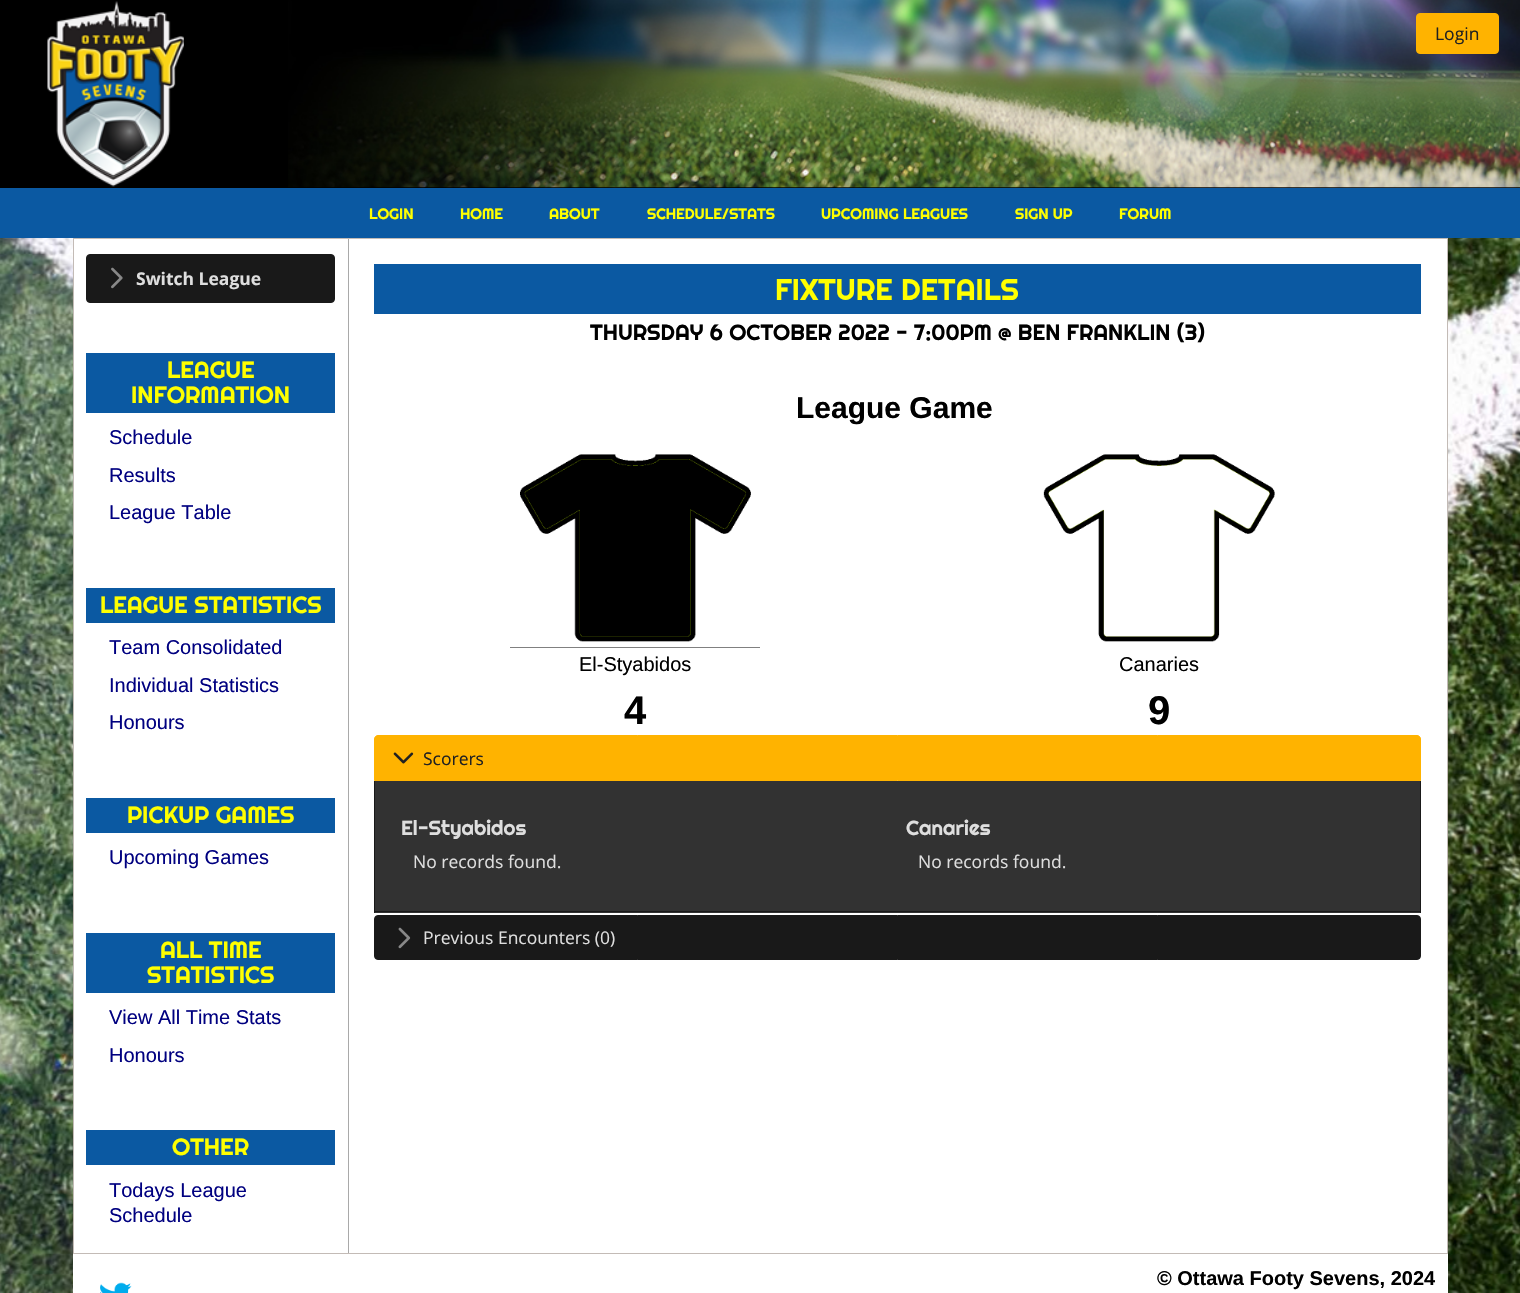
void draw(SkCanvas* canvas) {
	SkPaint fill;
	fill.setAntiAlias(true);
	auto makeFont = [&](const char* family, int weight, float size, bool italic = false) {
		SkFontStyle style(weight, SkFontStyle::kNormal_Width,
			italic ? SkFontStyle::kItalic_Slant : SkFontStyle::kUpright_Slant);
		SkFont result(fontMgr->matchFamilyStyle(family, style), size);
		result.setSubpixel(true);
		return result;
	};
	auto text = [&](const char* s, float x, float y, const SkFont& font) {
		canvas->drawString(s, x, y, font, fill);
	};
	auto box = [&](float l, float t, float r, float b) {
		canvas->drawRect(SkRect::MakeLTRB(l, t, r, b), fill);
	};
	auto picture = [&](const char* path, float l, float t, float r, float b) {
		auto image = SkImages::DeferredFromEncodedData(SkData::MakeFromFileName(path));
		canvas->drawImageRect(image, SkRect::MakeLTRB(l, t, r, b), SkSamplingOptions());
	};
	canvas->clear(0xFFFFFFFF);
	picture("image0.png", 0, 238, 1520, 1293);
	fill.setColor(0xFF000000);
	box(0, 0, 1520, 188);
	picture("image1.png", 47, 1, 184, 187);
	picture("image2.png", 288, 0, 1520, 188);
	fill.setColor(0xFFFFB300);
	canvas->drawRoundRect(SkRect::MakeLTRB(1416.5f, 13.5f, 1498.5f, 53.5f), 3.5f, 3.5f, fill);
	fill.setStyle(SkPaint::kStroke_Style);
	fill.setStrokeWidth(1);
	canvas->drawRoundRect(SkRect::MakeLTRB(1416.5f, 13.5f, 1498.5f, 53.5f), 3.5f, 3.5f, fill);
	fill.setStyle(SkPaint::kFill_Style);
	fill.setColor(0xFF0B59A2);
	box(0, 188, 1520, 238);
	fill.setColor(0xFFFFFFFF);
	canvas->drawRect(SkRect::MakeLTRB(73.5f, 238.5f, 1447.5f, 1253.5f), fill);
	fill.setStyle(SkPaint::kStroke_Style);
	fill.setColor(0xFFC3BBB6);
	canvas->drawRect(SkRect::MakeLTRB(73.5f, 238.5f, 1447.5f, 1253.5f), fill);
	fill.setStyle(SkPaint::kFill_Style);
	fill.setColor(0xFFA9A9A9);
	box(348, 239, 349, 1253);
	fill.setColor(0xFF191919);
	canvas->drawRoundRect(SkRect::MakeLTRB(86.5f, 254.5f, 334.5f, 302.5f), 3.5f, 3.5f, fill);
	fill.setStyle(SkPaint::kStroke_Style);
	canvas->drawRoundRect(SkRect::MakeLTRB(86.5f, 254.5f, 334.5f, 302.5f), 3.5f, 3.5f, fill);
	picture("image3.png", 111, 267, 123, 289);
	fill.setStyle(SkPaint::kFill_Style);
	fill.setColor(0xFF0B59A2);
	box(86, 353, 335, 413);
	box(86, 588, 335, 623);
	box(86, 798, 335, 833);
	box(86, 933, 335, 993);
	box(86, 1130, 335, 1165);
	box(374, 264, 1421, 314);
	fill.setColor(0xFF000000);
	box(510, 459, 760, 648);
	picture("image4.png", 510, 448, 760, 648);
	picture("image5.png", 1043, 454, 1275, 642);
	fill.setColor(0xFFFFB300);
	canvas->drawPath(SkPathBuilder().moveTo(378, 735.5f).lineTo(1417, 735.5f).cubicTo(1419, 735.5f, 1420.5f, 737, 1420.5f, 739).lineTo(1420.5f, 780.5f).lineTo(374.5f, 780.5f).lineTo(374.5f, 739).cubicTo(374.5f, 737, 376, 735.5f, 378, 735.5f).close().detach(), fill);
	fill.setStyle(SkPaint::kStroke_Style);
	canvas->drawPath(SkPathBuilder().moveTo(378, 735.5f).lineTo(1417, 735.5f).cubicTo(1419, 735.5f, 1420.5f, 737, 1420.5f, 739).lineTo(1420.5f, 780.5f).lineTo(374.5f, 780.5f).lineTo(374.5f, 739).cubicTo(374.5f, 737, 376, 735.5f, 378, 735.5f).close().detach(), fill);
	picture("image6.png", 393, 752, 414, 764);
	fill.setStyle(SkPaint::kFill_Style);
	fill.setColor(0xFF323232);
	box(375, 781, 1420, 913);
	fill.setColor(0xFF191919);
	box(1420, 781, 1421, 913);
	box(374, 911, 1421, 912);
	box(374, 781, 375, 913);
	canvas->drawRoundRect(SkRect::MakeLTRB(374.5f, 915.5f, 1420.5f, 959.5f), 3.5f, 3.5f, fill);
	fill.setStyle(SkPaint::kStroke_Style);
	canvas->drawRoundRect(SkRect::MakeLTRB(374.5f, 915.5f, 1420.5f, 959.5f), 3.5f, 3.5f, fill);
	picture("image7.png", 398, 927, 411, 949);
	fill.setStyle(SkPaint::kFill_Style);
	fill.setColor(0xFFFFFFFF);
	box(73, 1254, 1448, 1293);
	picture("image8.png", 100, 1282, 132, 1293);
	auto font1 = makeFont("Open Sans", 400, 17.5f);
	fill.setColor(0xFF212121);
	text("Login", 1435, 40, font1);
	auto font2 = makeFont("Righteous", 400, 15);
	fill.setColor(0xFFFFFF00);
	text("LOGIN", 369, 219, font2);
	text("HOME", 460, 219, font2);
	text("ABOUT", 549, 219, font2);
	text("SCHEDULE/STATS", 647, 219, font2);
	text("UPCOMING LEAGUES", 821, 219, font2);
	text("SIGN UP", 1015, 219, font2);
	text("FORUM", 1119, 219, font2);
	auto font3 = makeFont("Open Sans", 700, 17.5f);
	fill.setColor(0xFFDEDEDE);
	text("Switch League", 136, 285, font3);
	auto font4 = makeFont("Righteous", 400, 23.5f);
	fill.setColor(0xFFFFFF00);
	text("LEAGUE", 167, 378, font4);
	text("INFORMATION", 131, 403, font4);
	auto font5 = makeFont("Liberation Sans", 400, 20);
	fill.setColor(0xFF000080);
	text("Schedule", 109, 444, font5);
	text("Results", 109, 482, font5);
	text("League Table", 109, 519, font5);
	fill.setColor(0xFFFFFF00);
	text("LEAGUE STATISTICS", 100, 613, font4);
	fill.setColor(0xFF000080);
	text("Team Consolidated", 109, 654, font5);
	text("Individual Statistics", 109, 692, font5);
	text("Honours", 109, 729, font5);
	fill.setColor(0xFFFFFF00);
	text("PICKUP GAMES", 127, 823, font4);
	fill.setColor(0xFF000080);
	text("Upcoming Games", 109, 864, font5);
	fill.setColor(0xFFFFFF00);
	text("ALL TIME", 160, 958, font4);
	text("STATISTICS", 147, 983, font4);
	fill.setColor(0xFF000080);
	text("View All Time Stats", 109, 1024, font5);
	text("Honours", 109, 1062, font5);
	fill.setColor(0xFFFFFF00);
	text("OTHER", 172, 1155, font4);
	fill.setColor(0xFF000080);
	text("Todays League", 109, 1197, font5);
	text("Schedule", 109, 1222, font5);
	auto font6 = makeFont("Righteous", 400, 30);
	fill.setColor(0xFFFFFF00);
	text("FIXTURE DETAILS", 775, 300, font6);
	auto font7 = makeFont("Righteous", 400, 22);
	fill.setColor(0xFF000000);
	text("THURSDAY 6 OCTOBER 2022 - 7:00PM @ BEN FRANKLIN (3)", 590, 340, font7);
	auto font8 = makeFont("Liberation Sans", 700, 30);
	text("League Game", 796, 418, font8);
	text("El-Styabidos", 579, 671, font5);
	text("Canaries", 1119, 671, font5);
	auto font9 = makeFont("Liberation Sans", 700, 40);
	text("4", 624, 724, font9);
	text("9", 1148, 724, font9);
	fill.setColor(0xFF212121);
	text("Scorers", 423, 765, font1);
	auto font10 = makeFont("Righteous", 400, 20.5f);
	fill.setColor(0xFFDEDEDE);
	text("El-Styabidos", 401, 835, font10);
	text("No records found.", 413, 868, font1);
	text("Canaries", 906, 835, font10);
	text("No records found.", 918, 868, font1);
	text("Previous Encounters (0)", 423, 944, font1);
	auto font11 = makeFont("Liberation Sans", 700, 20);
	fill.setColor(0xFF000000);
	text("© Ottawa Footy Sevens, 2024", 1157, 1285, font11);
}
